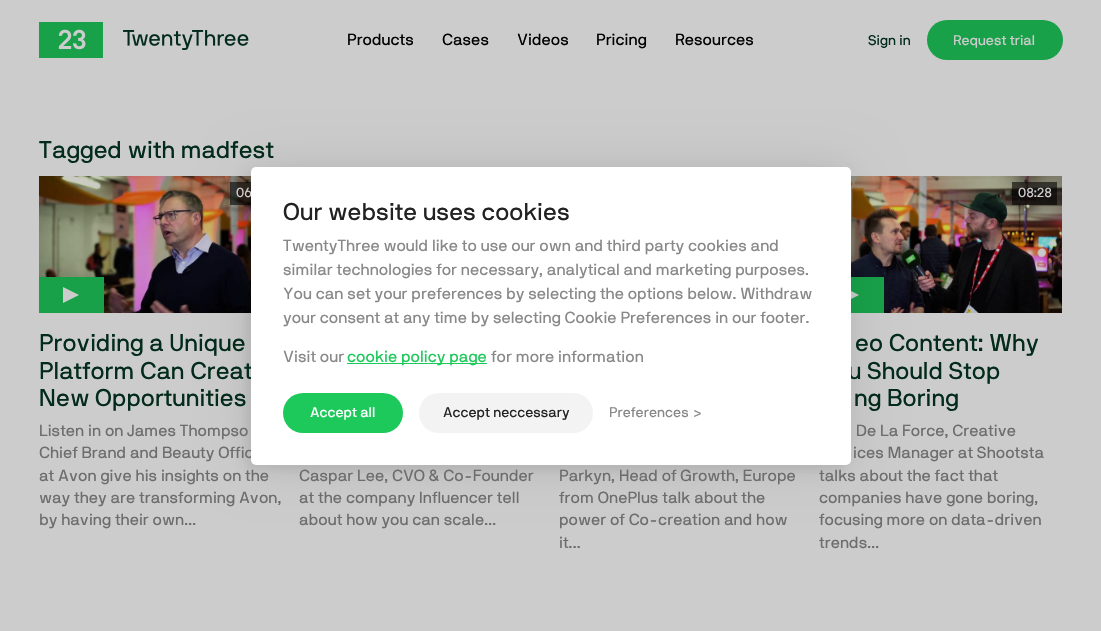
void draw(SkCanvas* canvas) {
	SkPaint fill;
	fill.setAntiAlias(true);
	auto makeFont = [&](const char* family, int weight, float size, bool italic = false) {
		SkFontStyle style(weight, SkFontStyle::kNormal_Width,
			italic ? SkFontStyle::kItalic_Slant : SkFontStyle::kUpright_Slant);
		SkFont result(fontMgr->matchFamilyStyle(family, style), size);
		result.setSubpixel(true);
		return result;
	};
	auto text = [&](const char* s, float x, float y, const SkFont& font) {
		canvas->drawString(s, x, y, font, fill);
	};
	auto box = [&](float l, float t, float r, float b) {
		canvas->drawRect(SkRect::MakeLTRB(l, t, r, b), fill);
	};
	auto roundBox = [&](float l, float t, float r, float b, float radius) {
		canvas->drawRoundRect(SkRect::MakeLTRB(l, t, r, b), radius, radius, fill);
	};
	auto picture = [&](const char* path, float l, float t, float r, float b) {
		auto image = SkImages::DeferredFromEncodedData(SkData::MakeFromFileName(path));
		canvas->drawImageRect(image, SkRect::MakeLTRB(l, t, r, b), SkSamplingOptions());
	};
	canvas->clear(0xFFCCCCCC);
	picture("image0.png", 39, 22, 103, 58);
	picture("image1.png", 123, 30, 249, 50);
	fill.setColor(0xFF18A149);
	roundBox(927, 20, 1063, 60, 20);
	picture("image2.png", 39, 176, 251, 313);
	fill.setColor(0x99000000);
	box(230, 182, 251, 205);
	fill.setColor(0xFF18A149);
	box(39, 277, 104, 313);
	fill.setColor(0xFFCCCCCC);
	canvas->drawPath(SkPathBuilder().moveTo(63, 303).lineTo(63, 287).lineTo(79, 295).close().detach(), fill);
	picture("image3.png", 851, 176, 1062, 313);
	fill.setColor(0x99000000);
	box(1012, 182, 1057, 205);
	fill.setColor(0xFF18A149);
	box(851, 277, 884, 313);
	fill.setColor(0xFFCCCCCC);
	canvas->drawPath(SkPathBuilder().moveTo(843, 303).lineTo(843, 287).lineTo(859, 295).close().detach(), fill);
	fill.setColor(0x1A000000);
	fill.setMaskFilter(SkMaskFilter::MakeBlur(kNormal_SkBlurStyle, 25));
	canvas->drawRoundRect(SkRect::MakeLTRB(251, 167, 851, 465), 5, 5, fill);
	fill.setMaskFilter(nullptr);
	fill.setColor(0x12000000);
	fill.setMaskFilter(SkMaskFilter::MakeBlur(kNormal_SkBlurStyle, 5));
	canvas->drawRoundRect(SkRect::MakeLTRB(246, 172, 846, 470), 5, 5, fill);
	fill.setMaskFilter(nullptr);
	auto font1 = makeFont("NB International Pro", 400, 16);
	fill.setColor(0xFF000000);
	text("Products", 347, 45, font1);
	text("Cases", 442, 45, font1);
	text("Videos", 517, 45, font1);
	text("Pricing", 596, 45, font1);
	text("Resources", 675, 45, font1);
	auto font2 = makeFont("NB International Pro", 400, 14);
	fill.setColor(0xFF032B1C);
	text("Sign in", 868, 45, font2);
	fill.setColor(0xFFCCCCCC);
	text("Request trial", 953, 45, font2);
	auto font3 = makeFont("NB International Pro", 400, 24);
	fill.setColor(0xFF032B1C);
	text("Tagged with madfest", 39, 158, font3);
	auto font4 = makeFont("NB International Pro", 400, 13);
	fill.setColor(0xFFCCCCCC);
	text("06", 236, 197, font4);
	fill.setColor(0xFF032B1C);
	text("Providing a Unique", 39, 351, font3);
	text("Platform Can Creat", 39, 379, font3);
	text("New Opportunities", 39, 406, font3);
	fill.setColor(0xFF6D6D6D);
	text("Listen in on James Thompso", 39, 436, font1);
	text("Chief Brand and Beauty Offic", 39, 458, font1);
	text("at Avon give his insights on the", 39, 481, font1);
	text("way they are transforming Avon,", 39, 503, font1);
	text("by having their own...", 39, 525, font1);
	text("Caspar Lee, CVO & Co-Founder", 299, 481, font1);
	text("at the company Influencer tell", 299, 503, font1);
	text("about how you can scale...", 299, 525, font1);
	text("Parkyn, Head of Growth, Europe", 559, 481, font1);
	text("from OnePlus talk about the", 559, 503, font1);
	text("power of Co-creation and how", 559, 525, font1);
	text("it...", 559, 548, font1);
	fill.setColor(0xFFCCCCCC);
	text("08:28", 1018, 197, font4);
	fill.setColor(0xFF032B1C);
	text("eo Content: Why", 855, 351, font3);
	text("u Should Stop", 848, 379, font3);
	text("ng Boring", 854, 406, font3);
	fill.setColor(0xFF6D6D6D);
	text("De La Force, Creative", 856, 436, font1);
	text("ices Manager at Shootsta", 853, 458, font1);
	text("talks about the fact that", 819, 481, font1);
	text("companies have gone boring,", 819, 503, font1);
	text("focusing more on data-driven", 819, 525, font1);
	text("trends...", 819, 548, font1);
	fill.setColor(0xFFFFFFFF);
	roundBox(251, 167, 851, 465, 5);
	fill.setColor(0xFF222222);
	text("Our website uses cookies", 283, 220, font3);
	fill.setColor(0xFF888888);
	text("TwentyThree would like to use our own and third party cookies and", 283, 251, font1);
	text("similar technologies for necessary, analytical and marketing purposes.", 283, 275, font1);
	text("You can set your preferences by selecting the options below. Withdraw", 283, 299, font1);
	text("your consent at any time by selecting Cookie Preferences in our footer.", 283, 323, font1);
	text("Visit our", 283, 362, font1);
	fill.setColor(0xFF1EC95B);
	box(347, 363, 487, 364);
	text("cookie policy page", 347, 362, font1);
	fill.setColor(0xFF888888);
	text("for more information", 491, 362, font1);
	fill.setColor(0xFF1EC95B);
	roundBox(283, 393, 403, 433, 20);
	fill.setColor(0xFFFFFFFF);
	text("Accept all", 310, 417, font2);
	fill.setColor(0xFFF3F3F3);
	roundBox(419, 393, 593, 433, 20);
	fill.setColor(0xFF222222);
	text("Accept neccessary", 443, 417, font2);
	fill.setColor(0xFF888888);
	text("Preferences", 609, 417, font2);
	text(">", 694, 417, font2);
}
